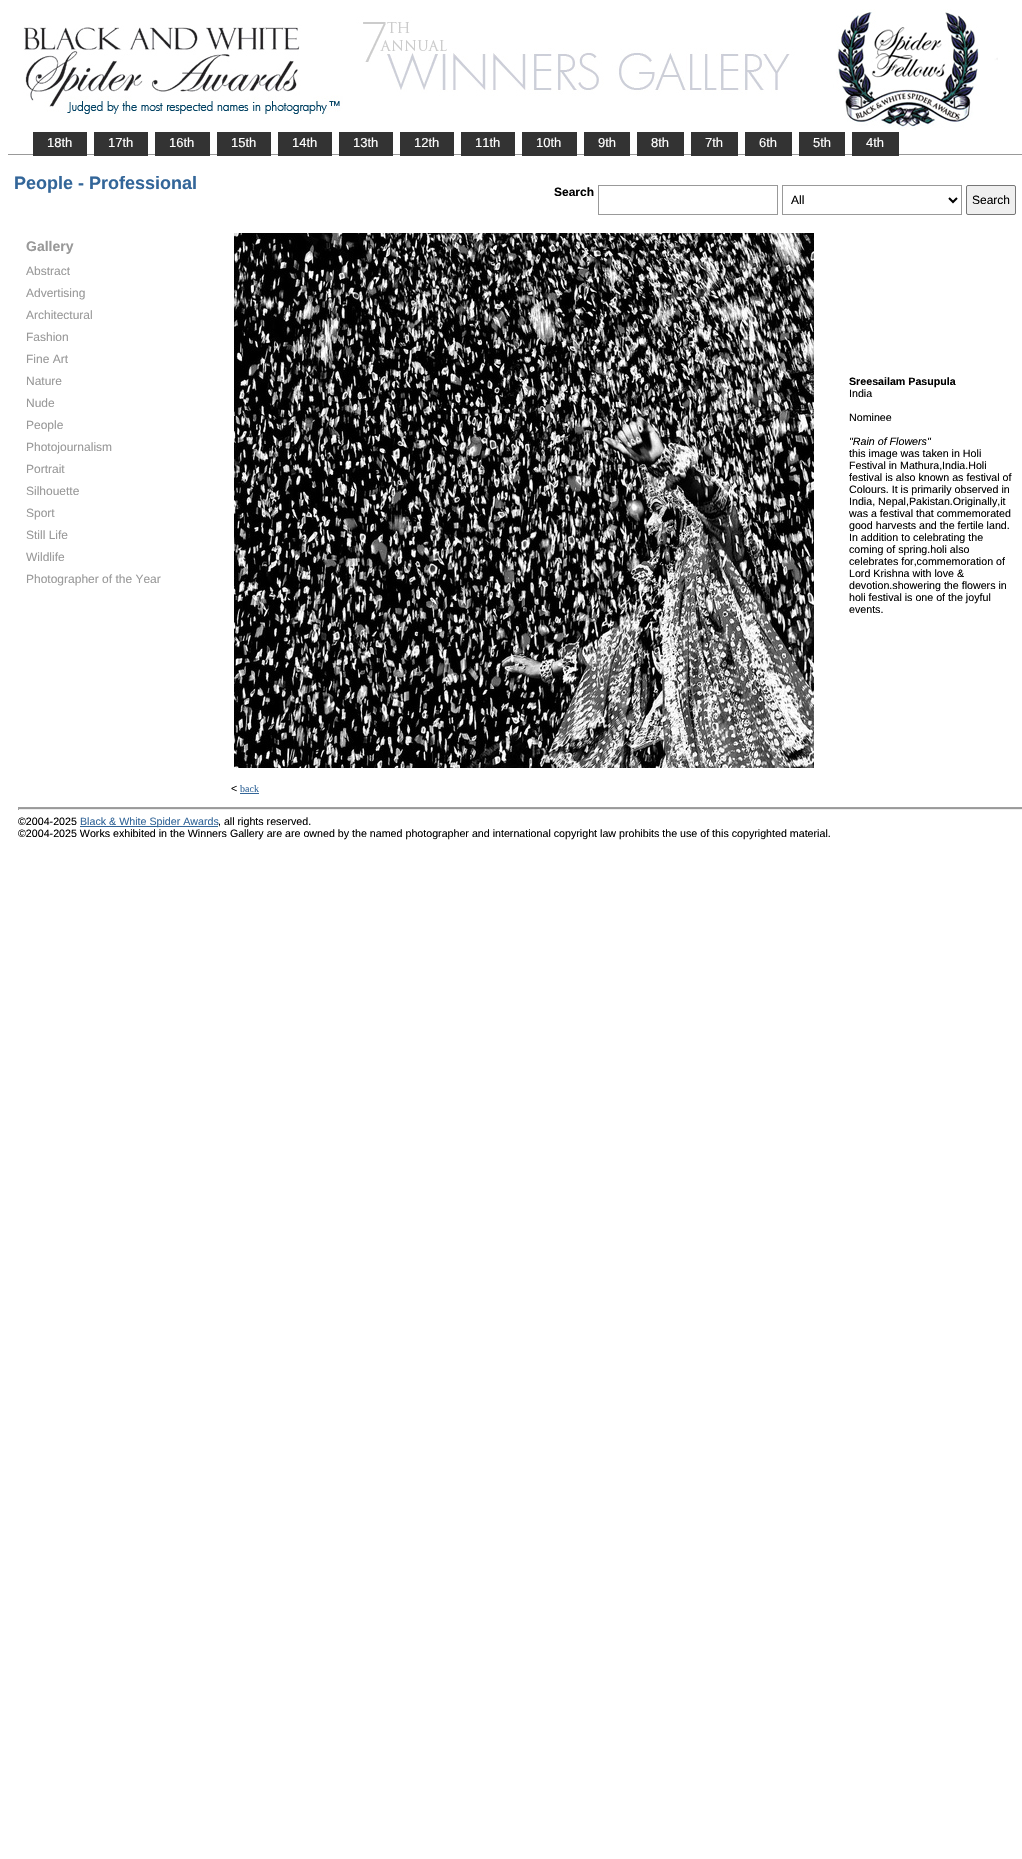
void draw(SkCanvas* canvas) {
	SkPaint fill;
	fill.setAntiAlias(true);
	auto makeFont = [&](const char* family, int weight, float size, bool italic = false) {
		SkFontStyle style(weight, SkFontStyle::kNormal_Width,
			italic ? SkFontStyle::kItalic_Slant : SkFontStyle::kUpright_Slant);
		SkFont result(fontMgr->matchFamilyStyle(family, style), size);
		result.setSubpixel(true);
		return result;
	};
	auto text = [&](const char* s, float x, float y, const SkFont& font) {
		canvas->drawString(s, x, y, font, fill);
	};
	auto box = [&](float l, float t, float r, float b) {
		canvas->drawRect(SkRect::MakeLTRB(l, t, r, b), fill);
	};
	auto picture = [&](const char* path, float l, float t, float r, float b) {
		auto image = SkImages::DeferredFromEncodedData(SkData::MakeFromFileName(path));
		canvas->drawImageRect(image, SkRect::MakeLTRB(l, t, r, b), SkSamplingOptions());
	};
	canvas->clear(0xFFFFFFFF);
	picture("image0.png", 23, 9, 998, 130);
	fill.setColor(0xFF999999);
	box(8, 154, 1022, 155);
	fill.setColor(0xFF333333);
	box(33, 132, 87, 156);
	box(94, 132, 148, 156);
	box(155, 132, 210, 156);
	box(217, 132, 271, 156);
	box(278, 132, 332, 156);
	box(339, 132, 393, 156);
	box(400, 132, 454, 156);
	box(461, 132, 515, 156);
	box(522, 132, 577, 156);
	box(584, 132, 630, 156);
	box(637, 132, 684, 156);
	box(691, 132, 738, 156);
	box(745, 132, 792, 156);
	box(799, 132, 845, 156);
	box(852, 132, 899, 156);
	fill.setStyle(SkPaint::kStroke_Style);
	fill.setStrokeWidth(1);
	fill.setColor(0xFF999999);
	canvas->drawRect(SkRect::MakeLTRB(598.5f, 185.5f, 777.5f, 214.5f), fill);
	canvas->drawRect(SkRect::MakeLTRB(782.5f, 185.5f, 961.5f, 214.5f), fill);
	fill.setStrokeWidth(2);
	fill.setColor(0xFF000000);
	canvas->drawPath(SkPathBuilder().moveTo(949, 198).lineTo(953, 202).lineTo(957, 198).detach(), fill);
	fill.setStyle(SkPaint::kFill_Style);
	fill.setColor(0xFFEFEFEF);
	canvas->drawRoundRect(SkRect::MakeLTRB(966.5f, 185.5f, 1015.5f, 214.5f), 1.5f, 1.5f, fill);
	fill.setStyle(SkPaint::kStroke_Style);
	fill.setStrokeWidth(1);
	fill.setColor(0xFF767676);
	canvas->drawRoundRect(SkRect::MakeLTRB(966.5f, 185.5f, 1015.5f, 214.5f), 1.5f, 1.5f, fill);
	picture("image1.png", 234, 233, 814, 768);
	fill.setStyle(SkPaint::kFill_Style);
	fill.setColor(0xFF336699);
	box(240, 793, 259, 794);
	fill.setColor(0xFF999999);
	box(18, 808, 1022, 809);
	fill.setColor(0xFF9F9F9F);
	box(18, 807, 1022, 808);
	fill.setColor(0xFFEEEEEE);
	box(18, 809, 1022, 810);
	fill.setColor(0xFF9F9F9F);
	box(18, 807, 19, 810);
	fill.setColor(0xFF336699);
	box(80, 826, 218, 827);
	auto font1 = makeFont("Liberation Sans", 400, 13);
	fill.setColor(0xFFFFFFFF);
	text("18th", 47, 147, font1);
	text("17th", 108, 147, font1);
	text("16th", 169, 147, font1);
	text("15th", 231, 147, font1);
	text("14th", 292, 147, font1);
	text("13th", 353, 147, font1);
	text("12th", 414, 147, font1);
	text("11th", 475, 147, font1);
	text("10th", 536, 147, font1);
	text("9th", 598, 147, font1);
	text("8th", 651, 147, font1);
	text("7th", 705, 147, font1);
	text("6th", 759, 147, font1);
	text("5th", 813, 147, font1);
	text("4th", 866, 147, font1);
	auto font2 = makeFont("Liberation Sans", 700, 18);
	fill.setColor(0xFF336699);
	text("People - Professional", 14, 189, font2);
	auto font3 = makeFont("Liberation Sans", 700, 12);
	fill.setColor(0xFF000000);
	text("Search", 554, 196, font3);
	auto font4 = makeFont("Liberation Sans", 400, 12);
	text("All", 791, 204, font4);
	text("Search", 972, 204, font4);
	auto font5 = makeFont("Liberation Sans", 700, 14);
	fill.setColor(0xFF999999);
	text("Gallery", 26, 251, font5);
	text("Abstract", 26, 275, font4);
	text("Advertising", 26, 297, font4);
	text("Architectural", 26, 319, font4);
	text("Fashion", 26, 341, font4);
	text("Fine Art", 26, 363, font4);
	text("Nature", 26, 385, font4);
	text("Nude", 26, 407, font4);
	text("People", 26, 429, font4);
	text("Photojournalism", 26, 451, font4);
	text("Portrait", 26, 473, font4);
	text("Silhouette", 26, 495, font4);
	text("Sport", 26, 517, font4);
	text("Still Life", 26, 539, font4);
	text("Wildlife", 26, 561, font4);
	text("Photographer of the Year", 26, 583, font4);
	auto font6 = makeFont("Liberation Sans", 700, 10.67f);
	fill.setColor(0xFF000000);
	text("Sreesailam Pasupula", 849, 385, font6);
	auto font7 = makeFont("Liberation Sans", 400, 10.67f);
	text("India", 849, 397, font7);
	text("Nominee", 849, 421, font7);
	auto font8 = makeFont("Liberation Sans", 400, 10.67f, true);
	text("\"Rain of Flowers\"", 849, 445, font8);
	text("this image was taken in Holi", 849, 457, font7);
	text("Festival in Mathura,India.Holi", 849, 469, font7);
	text("festival is also known as festival of", 849, 481, font7);
	text("Colours. It is primarily observed in", 849, 493, font7);
	text("India, Nepal,Pakistan.Originally,it", 849, 505, font7);
	text("was a festival that commemorated", 849, 517, font7);
	text("good harvests and the fertile land.", 849, 529, font7);
	text("In addition to celebrating the", 849, 541, font7);
	text("coming of spring.holi also", 849, 553, font7);
	text("celebrates for,commemoration of", 849, 565, font7);
	text("Lord Krishna with love &", 849, 577, font7);
	text("devotion.showering the flowers in", 849, 589, font7);
	text("holi festival is one of the joyful", 849, 601, font7);
	text("events.", 849, 613, font7);
	text("<", 231, 792, font7);
	auto font9 = makeFont("Liberation Serif", 400, 10);
	fill.setColor(0xFF336699);
	text("back", 240, 792, font9);
	fill.setColor(0xFF000000);
	text("©2004-2025", 18, 825, font7);
	fill.setColor(0xFF336699);
	text("Black & White Spider Awards", 80, 825, font7);
	fill.setColor(0xFF000000);
	text(", all rights reserved.", 218, 825, font7);
	text("©2004-2025 Works exhibited in the Winners Gallery are are owned by the named photographer and international copyright law prohibits the use of this copyrighted material.", 18, 837, font7);
}
